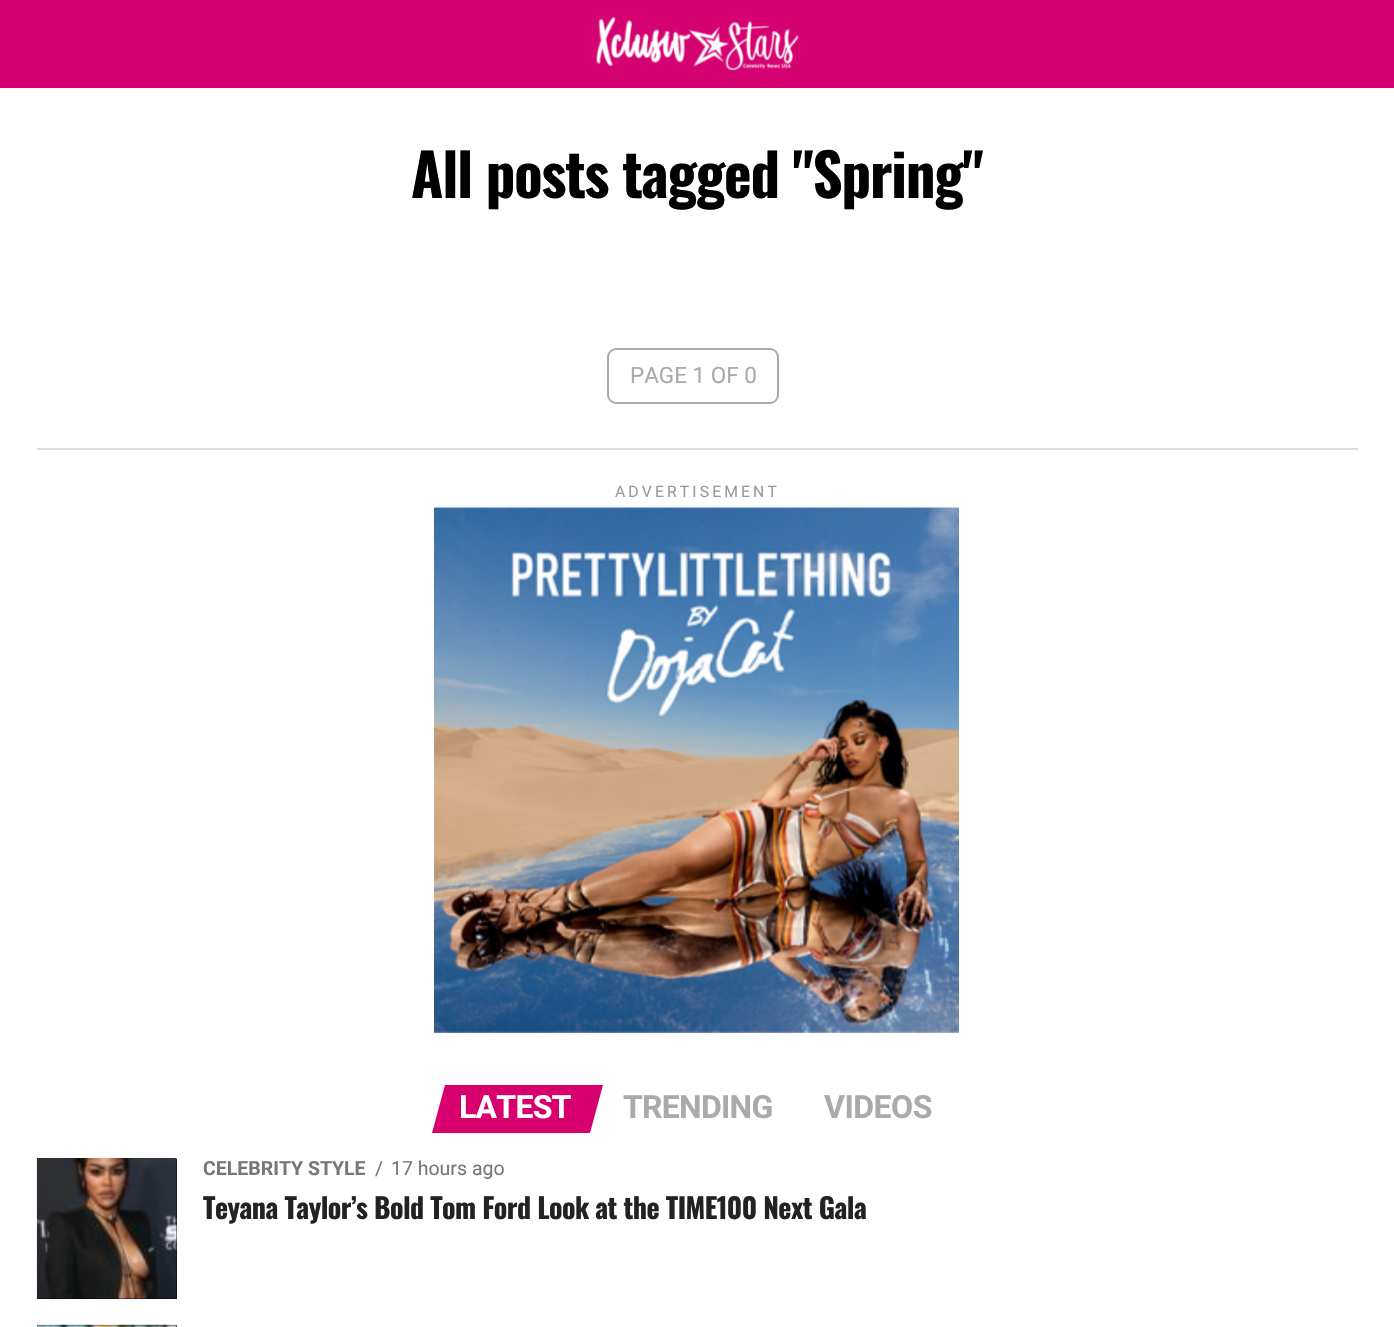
void draw(SkCanvas* canvas) {
	SkPaint fill;
	fill.setAntiAlias(true);
	auto makeFont = [&](const char* family, int weight, float size, bool italic = false) {
		SkFontStyle style(weight, SkFontStyle::kNormal_Width,
			italic ? SkFontStyle::kItalic_Slant : SkFontStyle::kUpright_Slant);
		SkFont result(fontMgr->matchFamilyStyle(family, style), size);
		result.setSubpixel(true);
		return result;
	};
	auto text = [&](const char* s, float x, float y, const SkFont& font) {
		canvas->drawString(s, x, y, font, fill);
	};
	auto spacedText = [&](const char* s, float x, float y, const SkFont& font, const SkPaint& ink, float letter, float word) {
		std::vector<SkGlyphID> glyphs(font.countText(s, strlen(s), SkTextEncoding::kUTF8));
		std::vector<float> xs(glyphs.size());
		font.textToGlyphs(s, strlen(s), SkTextEncoding::kUTF8, glyphs);
		font.getXPos(glyphs, xs, x);
		float extra = 0;
		for (size_t i = 0; i < glyphs.size(); i++) {
			xs[i] += extra;
			extra += letter + word * (glyphs[i] == font.unicharToGlyph(' '));
		}
		canvas->drawTextBlob(SkTextBlob::MakeFromPosHGlyphs(glyphs, xs, y, font), 0, 0, ink);
	};
	auto box = [&](float l, float t, float r, float b) {
		canvas->drawRect(SkRect::MakeLTRB(l, t, r, b), fill);
	};
	auto picture = [&](const char* path, float l, float t, float r, float b) {
		auto image = SkImages::DeferredFromEncodedData(SkData::MakeFromFileName(path));
		canvas->drawImageRect(image, SkRect::MakeLTRB(l, t, r, b), SkSamplingOptions());
	};
	canvas->clear(0xFFFFFFFF);
	fill.setColor(0xFFD50371);
	box(0, 0, 1394, 88);
	picture("image0.png", 596, 17, 799, 70);
	fill.setStyle(SkPaint::kStroke_Style);
	fill.setStrokeWidth(2);
	fill.setColor(0xFFAAAAAA);
	canvas->drawRoundRect(SkRect::MakeLTRB(608, 349, 778, 403), 8, 8, fill);
	fill.setStyle(SkPaint::kFill_Style);
	fill.setColor(0xFFDDDDDD);
	box(37, 448, 1358, 450);
	picture("image1.png", 434, 506, 959, 1033);
	fill.setColor(0xFFD8006E);
	canvas->drawPath(SkPathBuilder().moveTo(445, 1085).lineTo(603, 1085).lineTo(590, 1133).lineTo(432, 1133).close().detach(), fill);
	fill.setColor(0xFF000000);
	box(37, 1159, 177, 1299);
	picture("image2.png", 36, 1158, 177, 1299);
	box(37, 1325, 177, 1327);
	picture("image3.png", 36, 1324, 177, 1327);
	auto font1 = makeFont("Oswald", 700, 58.75f);
	spacedText("All posts tagged \"Spring\"", 411, 198, font1, fill, -1.2f, 0);
	auto font2 = makeFont("Roboto", 400, 22.5f);
	fill.setColor(0xFFAAAAAA);
	text("PAGE 1 OF 0", 630, 383, font2);
	auto font3 = makeFont("Roboto", 400, 15.75f);
	fill.setColor(0xFF999999);
	spacedText("ADVERTISEMENT", 615, 497, font3, fill, 3.1f, 0);
	auto font4 = makeFont("Roboto", 700, 32);
	fill.setColor(0xFFFFFFFF);
	spacedText("LATEST", 459, 1118, font4, fill, -0.75f, 0);
	fill.setColor(0xFFAAAAAA);
	spacedText("TRENDING", 623, 1118, font4, fill, -0.75f, 0);
	spacedText("VIDEOS", 824, 1118, font4, fill, -0.5f, 0);
	auto font5 = makeFont("Roboto", 700, 19.5f);
	fill.setColor(0xFF777777);
	text("CELEBRITY STYLE", 203, 1175, font5);
	auto font6 = makeFont("Roboto", 400, 19.5f);
	text("/", 375, 1175, font6);
	text("17 hours ago", 391, 1175, font6);
	auto font7 = makeFont("Oswald", 700, 28);
	fill.setColor(0xFF222222);
	spacedText("Teyana Taylor’s Bold Tom Ford Look at the TIME100 Next Gala", 203, 1219, font7, fill, -0.55f, 0);
}
